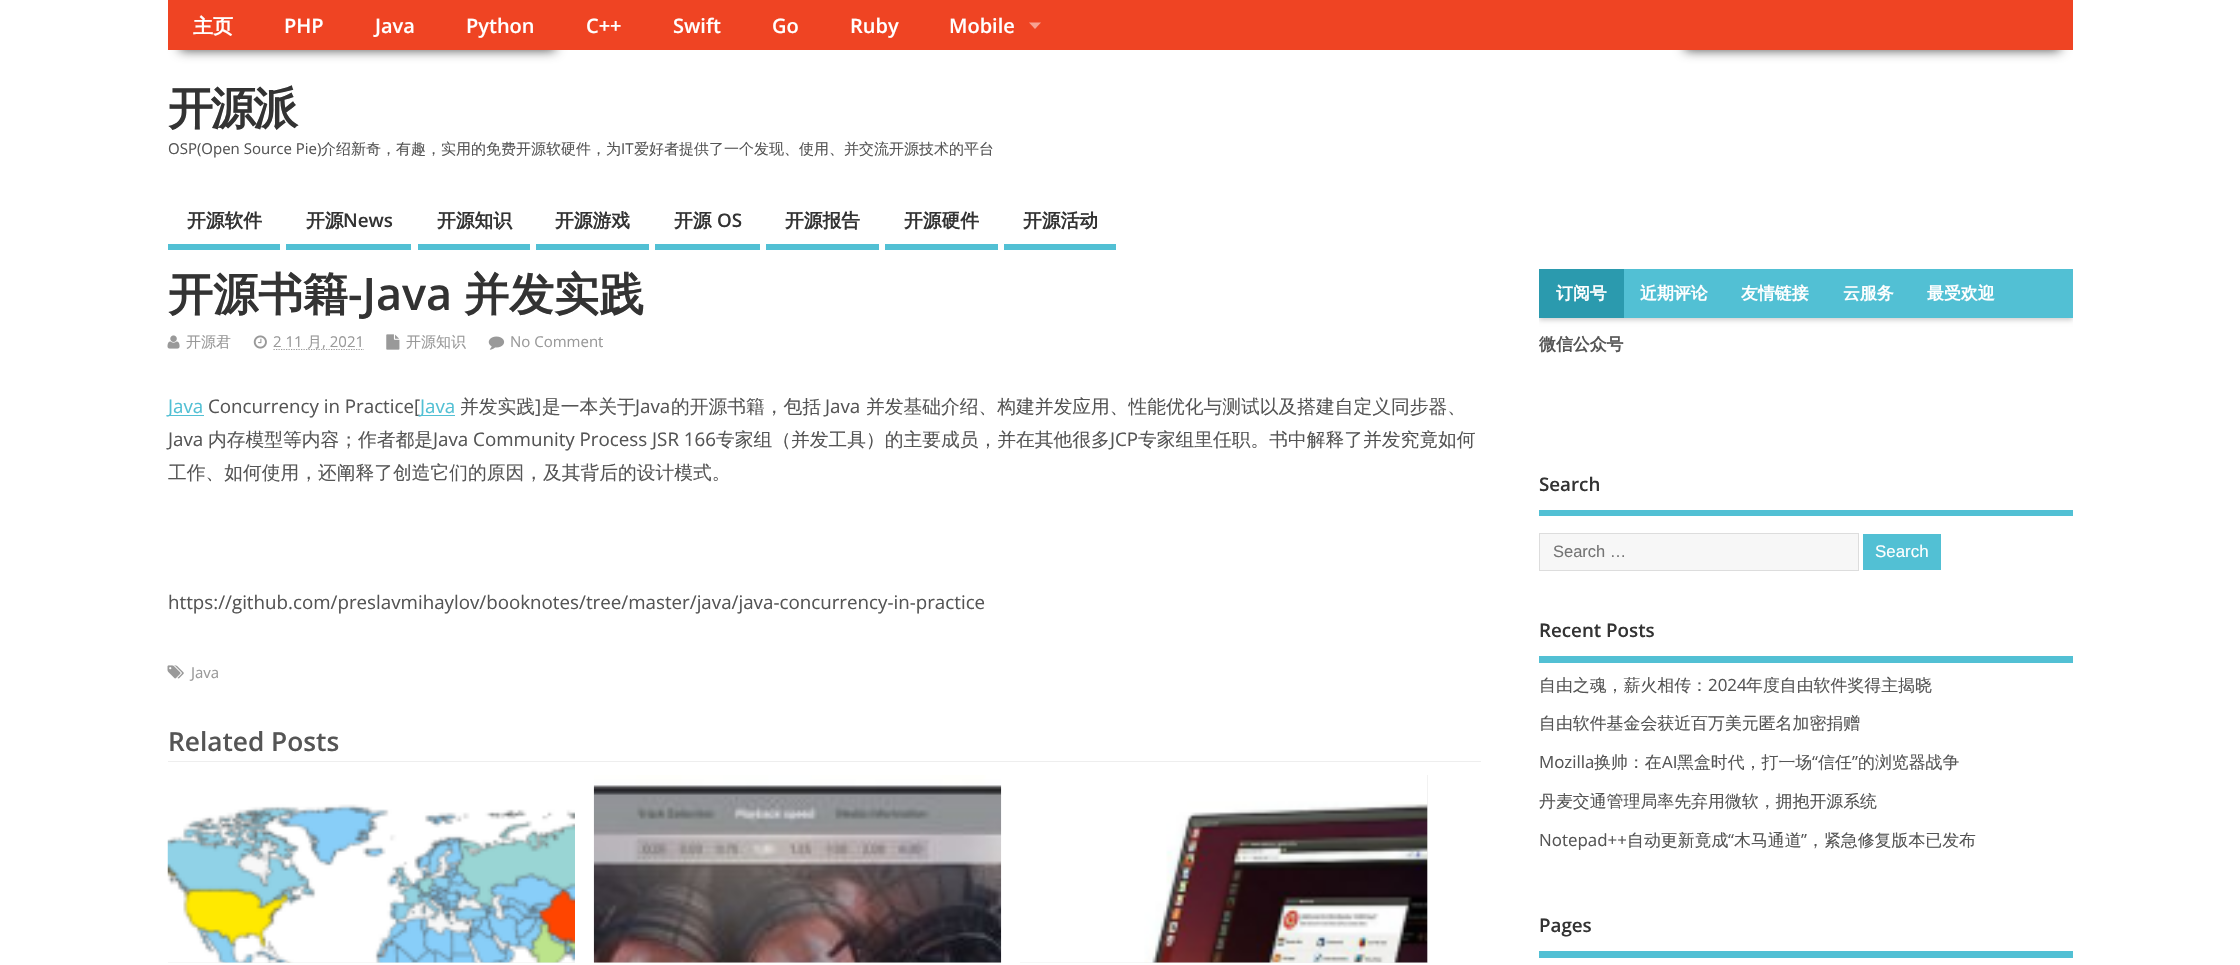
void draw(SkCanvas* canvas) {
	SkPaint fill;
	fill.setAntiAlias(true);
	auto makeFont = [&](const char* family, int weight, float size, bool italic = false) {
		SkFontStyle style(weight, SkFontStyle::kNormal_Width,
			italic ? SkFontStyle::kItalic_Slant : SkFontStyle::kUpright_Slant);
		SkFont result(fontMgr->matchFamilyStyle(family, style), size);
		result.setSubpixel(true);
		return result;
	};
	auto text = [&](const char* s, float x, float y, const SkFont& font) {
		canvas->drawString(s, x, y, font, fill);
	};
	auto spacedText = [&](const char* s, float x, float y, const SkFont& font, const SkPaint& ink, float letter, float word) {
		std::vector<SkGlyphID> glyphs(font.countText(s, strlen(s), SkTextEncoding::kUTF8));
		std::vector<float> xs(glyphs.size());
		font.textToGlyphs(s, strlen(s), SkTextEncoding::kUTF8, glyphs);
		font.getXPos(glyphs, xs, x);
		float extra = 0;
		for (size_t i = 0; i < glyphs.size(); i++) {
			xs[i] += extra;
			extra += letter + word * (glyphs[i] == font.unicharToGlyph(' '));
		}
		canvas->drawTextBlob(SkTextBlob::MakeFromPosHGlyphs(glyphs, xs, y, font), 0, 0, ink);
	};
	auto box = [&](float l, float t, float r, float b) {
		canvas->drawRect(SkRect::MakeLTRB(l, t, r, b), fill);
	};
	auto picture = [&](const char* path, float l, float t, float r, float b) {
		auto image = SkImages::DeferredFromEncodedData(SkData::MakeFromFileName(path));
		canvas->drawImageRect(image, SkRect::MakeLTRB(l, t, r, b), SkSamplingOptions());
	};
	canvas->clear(0xFFFFFFFF);
	fill.setColor(0xBF000000);
	fill.setMaskFilter(SkMaskFilter::MakeBlur(kNormal_SkBlurStyle, 6));
	canvas->drawRect(SkRect::MakeLTRB(180, 40, 555, 50), fill);
	fill.setMaskFilter(nullptr);
	fill.setMaskFilter(SkMaskFilter::MakeBlur(kNormal_SkBlurStyle, 6));
	canvas->drawRect(SkRect::MakeLTRB(1685, 40, 2060, 50), fill);
	fill.setMaskFilter(nullptr);
	fill.setColor(0xFFEF4423);
	box(168, 0, 2073, 50);
	fill.setColor(0xFFF7A291);
	canvas->drawPath(SkPathBuilder().moveTo(1029, 22.5f).lineTo(1041, 22.5f).lineTo(1035, 29).close().detach(), fill);
	fill.setColor(0xFF52C0D4);
	box(168, 244, 280, 250);
	box(286, 244, 411, 250);
	box(418, 244, 530, 250);
	box(536, 244, 649, 250);
	box(655, 244, 760, 250);
	box(766, 244, 879, 250);
	box(885, 244, 998, 250);
	box(1004, 244, 1116, 250);
	picture("image0.png", 167, 335, 180, 349);
	picture("image1.png", 253, 335, 267, 349);
	fill.setStyle(SkPaint::kStroke_Style);
	fill.setStrokeWidth(1.2f);
	fill.setColor(0xFF999999);
	fill.setPathEffect(SkDashPathEffect::Make({{1.25f, 1.25f}}, 0));
	canvas->drawPath(SkPathBuilder().moveTo(273.5f, 349.5f).lineTo(364, 349.5f).detach(), fill);
	fill.setPathEffect(nullptr);
	picture("image2.png", 386, 334, 400, 350);
	picture("image3.png", 488, 336, 505, 350);
	fill.setStyle(SkPaint::kFill_Style);
	fill.setColor(0xFF52C0D4);
	box(168, 415, 204, 416);
	box(420, 415, 455, 416);
	picture("image4.png", 167, 665, 184, 679);
	fill.setColor(0xFFEEEEEE);
	box(168, 761, 1481, 762);
	box(168, 962, 575, 963);
	picture("image5.png", 167, 775, 575, 963);
	box(594, 962, 1001, 963);
	picture("image6.png", 593, 775, 1002, 963);
	box(1020, 775, 1428, 963);
	picture("image7.png", 1020, 775, 1428, 963);
	canvas->save();
	canvas->clipRect(SkRect::MakeLTRB(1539, 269, 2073, 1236));
	fill.setColor(0xFFCCCCCC);
	fill.setMaskFilter(SkMaskFilter::MakeBlur(kNormal_SkBlurStyle, 2.5f));
	canvas->drawRect(SkRect::MakeLTRB(1539, 271, 2073, 320), fill);
	fill.setMaskFilter(nullptr);
	canvas->restore();
	fill.setColor(0xFF52C0D4);
	box(1624, 269, 2073, 318);
	fill.setColor(0xFF2B9AAE);
	box(1539, 269, 1624, 318);
	fill.setColor(0xFF52C0D4);
	box(1539, 510, 2073, 516);
	fill.setColor(0xFFF7F7F7);
	canvas->drawRect(SkRect::MakeLTRB(1539.5f, 533.5f, 1858.5f, 570.5f), fill);
	fill.setStyle(SkPaint::kStroke_Style);
	fill.setStrokeWidth(1);
	fill.setColor(0xFFDDDDDD);
	canvas->drawRect(SkRect::MakeLTRB(1539.5f, 533.5f, 1858.5f, 570.5f), fill);
	fill.setStyle(SkPaint::kFill_Style);
	fill.setColor(0xFF52C0D4);
	box(1863, 534, 1941, 570);
	box(1539, 656, 2073, 663);
	box(1539, 951, 2073, 958);
	auto font1 = makeFont("WenQuanYi Zen Hei", 700, 20);
	fill.setColor(0xFFFFFFFF);
	text("主页", 193, 33, font1);
	auto font2 = makeFont("Open Sans", 600, 20);
	text("PHP", 284, 33, font2);
	text("Java", 375, 33, font2);
	text("Python", 466, 33, font2);
	text("C++", 586, 33, font2);
	text("Swift", 673, 33, font2);
	text("Go", 772, 33, font2);
	text("Ruby", 850, 33, font2);
	text("Mobile", 949, 33, font2);
	auto font3 = makeFont("WenQuanYi Zen Hei", 700, 45);
	fill.setColor(0xFF333333);
	spacedText("开源派", 168, 124, font3, fill, -2.5f, 0);
	auto font4 = makeFont("Open Sans", 400, 15);
	fill.setColor(0xFF555555);
	text("OSP(Open Source Pie)", 168, 154, font4);
	auto font5 = makeFont("WenQuanYi Zen Hei", 500, 15);
	text("介绍新奇，有趣，实用的免费开源软硬件，为", 321, 154, font5);
	text("IT", 621, 154, font4);
	text("爱好者提供了一个发现、使用、并交流开源技术的平台", 634, 154, font5);
	auto font6 = makeFont("WenQuanYi Zen Hei", 700, 18.75f);
	fill.setColor(0xFF333333);
	text("开源软件", 187, 227, font6);
	text("开源", 306, 227, font6);
	auto font7 = makeFont("Open Sans", 600, 18.75f);
	text("News", 343, 227, font7);
	text("开源知识", 437, 227, font6);
	text("开源游戏", 555, 227, font6);
	text("开源", 674, 227, font6);
	text("OS", 717, 227, font7);
	text("开源报告", 785, 227, font6);
	text("开源硬件", 904, 227, font6);
	text("开源活动", 1023, 227, font6);
	text("开源书籍", 168, 310, font3);
	auto font8 = makeFont("Open Sans", 600, 45);
	text("-Java", 348, 310, font8);
	text("并发实践", 464, 310, font3);
	fill.setColor(0xFF999999);
	text("开源君", 186, 347, font5);
	text("2 11", 273, 347, font4);
	text("月", 307, 347, font5);
	text(", 2021", 322, 347, font4);
	text("开源知识", 406, 347, font5);
	text("No Comment", 510, 347, font4);
	auto font9 = makeFont("Open Sans", 400, 18.75f);
	fill.setColor(0xFF52C0D4);
	text("Java", 168, 413, font9);
	fill.setColor(0xFF555555);
	text("Concurrency in Practice[", 208, 413, font9);
	fill.setColor(0xFF52C0D4);
	text("Java", 420, 413, font9);
	auto font10 = makeFont("WenQuanYi Zen Hei", 500, 18.75f);
	fill.setColor(0xFF555555);
	text("并发实践", 460, 413, font10);
	text("]", 535, 413, font9);
	text("是一本关于", 542, 413, font10);
	text("Java", 635, 413, font9);
	text("的开源书籍，包括", 671, 413, font10);
	text("Java", 825, 413, font9);
	text("并发基础介绍、构建并发应用、性能优化与测试以及搭建自定义同步器、", 866, 413, font10);
	text("Java", 168, 446, font9);
	text("内存模型等内容；作者都是", 208, 446, font10);
	text("Java Community Process JSR 166", 433, 446, font9);
	text("专家组（并发工具）的主要成员，并在其他很多", 716, 446, font10);
	text("JCP", 1110, 446, font9);
	text("专家组里任职。书中解释了并发究竟如何", 1138, 446, font10);
	text("工作、如何使用，还阐释了创造它们的原因，及其背后的设计模式。", 168, 479, font10);
	text("https://github.com/preslavmihaylov/booknotes/tree/master/java/java-concurrency-in-practice", 168, 609, font9);
	fill.setColor(0xFF999999);
	text("Java", 191, 678, font4);
	auto font11 = makeFont("Open Sans", 600, 26.25f);
	fill.setColor(0xFF555555);
	text("Related Posts", 168, 751, font11);
	auto font12 = makeFont("WenQuanYi Zen Hei", 700, 16.9f);
	fill.setColor(0xFFFFFFFF);
	text("订阅号", 1556, 299, font12);
	text("近期评论", 1640, 299, font12);
	text("友情链接", 1741, 299, font12);
	text("云服务", 1843, 299, font12);
	text("最受欢迎", 1927, 299, font12);
	fill.setColor(0xFF555555);
	text("微信公众号", 1539, 350, font12);
	fill.setColor(0xFF333333);
	text("Search", 1539, 491, font7);
	auto font13 = makeFont("Liberation Sans", 400, 16.5f);
	fill.setColor(0xFF757575);
	text("Search …", 1553, 557, font13);
	auto font14 = makeFont("Liberation Sans", 400, 16.9f);
	fill.setColor(0xFFFFFFFF);
	text("Search", 1875, 557, font14);
	fill.setColor(0xFF333333);
	text("Recent Posts", 1539, 637, font7);
	auto font15 = makeFont("WenQuanYi Zen Hei", 500, 16.9f);
	fill.setColor(0xFF555555);
	text("自由之魂，薪火相传：", 1539, 691, font15);
	auto font16 = makeFont("Open Sans", 400, 16.9f);
	text("2024", 1708, 691, font16);
	text("年度自由软件奖得主揭晓", 1746, 691, font15);
	text("自由软件基金会获近百万美元匿名加密捐赠", 1539, 729, font15);
	text("Mozilla", 1539, 768, font16);
	text("换帅：在", 1594, 768, font15);
	text("AI", 1662, 768, font16);
	text("黑盒时代，打一场", 1677, 768, font15);
	text("“", 1812, 768, font16);
	text("信任", 1818, 768, font15);
	text("”", 1852, 768, font16);
	text("的浏览器战争", 1858, 768, font15);
	text("丹麦交通管理局率先弃用微软，拥抱开源系统", 1539, 807, font15);
	text("Notepad++", 1539, 846, font16);
	text("自动更新竟成", 1627, 846, font15);
	text("“", 1728, 846, font16);
	text("木马通道", 1734, 846, font15);
	text("”", 1801, 846, font16);
	text("，紧急修复版本已发布", 1807, 846, font15);
	fill.setColor(0xFF333333);
	text("Pages", 1539, 932, font7);
}
